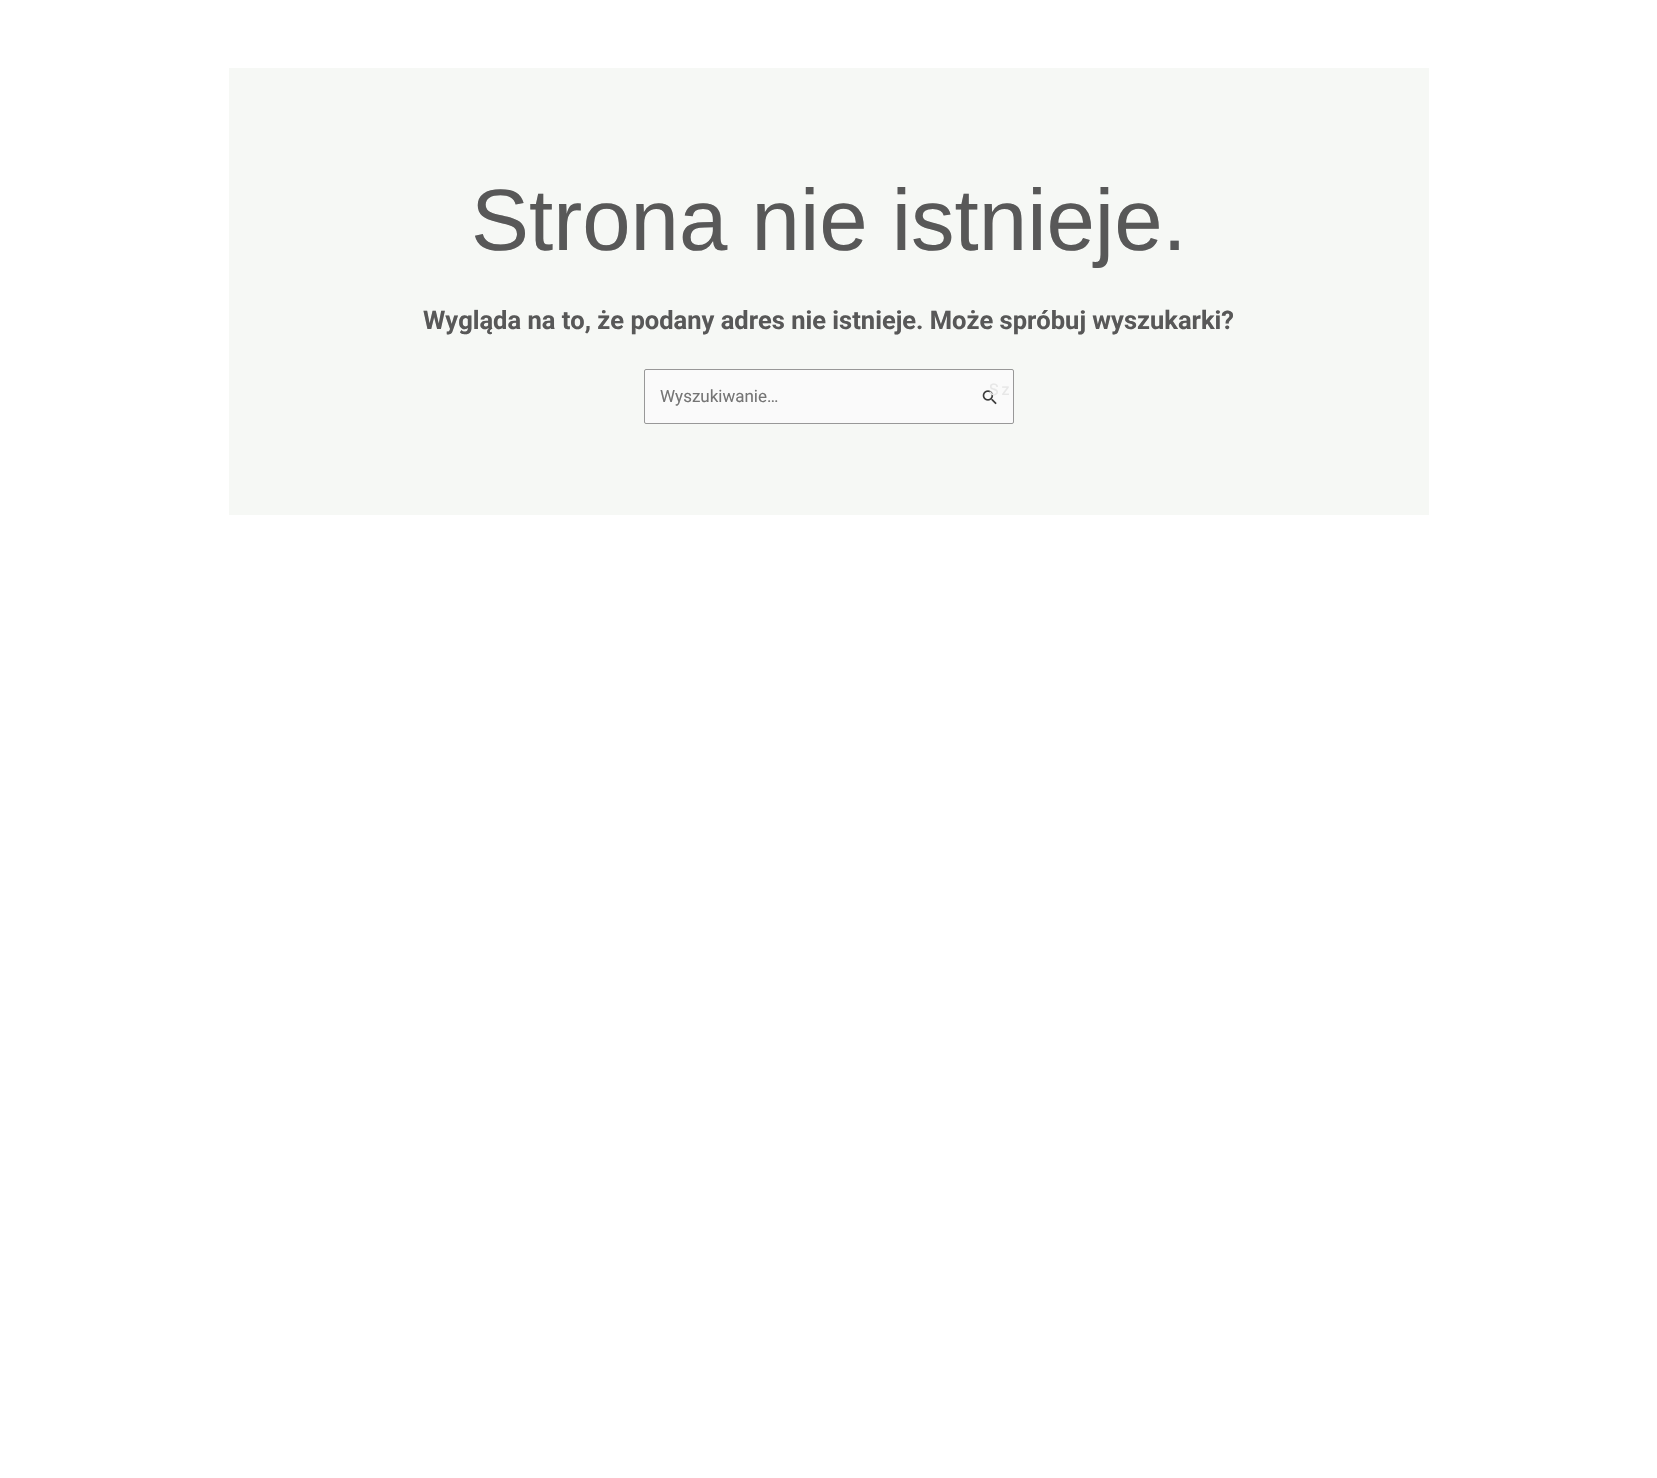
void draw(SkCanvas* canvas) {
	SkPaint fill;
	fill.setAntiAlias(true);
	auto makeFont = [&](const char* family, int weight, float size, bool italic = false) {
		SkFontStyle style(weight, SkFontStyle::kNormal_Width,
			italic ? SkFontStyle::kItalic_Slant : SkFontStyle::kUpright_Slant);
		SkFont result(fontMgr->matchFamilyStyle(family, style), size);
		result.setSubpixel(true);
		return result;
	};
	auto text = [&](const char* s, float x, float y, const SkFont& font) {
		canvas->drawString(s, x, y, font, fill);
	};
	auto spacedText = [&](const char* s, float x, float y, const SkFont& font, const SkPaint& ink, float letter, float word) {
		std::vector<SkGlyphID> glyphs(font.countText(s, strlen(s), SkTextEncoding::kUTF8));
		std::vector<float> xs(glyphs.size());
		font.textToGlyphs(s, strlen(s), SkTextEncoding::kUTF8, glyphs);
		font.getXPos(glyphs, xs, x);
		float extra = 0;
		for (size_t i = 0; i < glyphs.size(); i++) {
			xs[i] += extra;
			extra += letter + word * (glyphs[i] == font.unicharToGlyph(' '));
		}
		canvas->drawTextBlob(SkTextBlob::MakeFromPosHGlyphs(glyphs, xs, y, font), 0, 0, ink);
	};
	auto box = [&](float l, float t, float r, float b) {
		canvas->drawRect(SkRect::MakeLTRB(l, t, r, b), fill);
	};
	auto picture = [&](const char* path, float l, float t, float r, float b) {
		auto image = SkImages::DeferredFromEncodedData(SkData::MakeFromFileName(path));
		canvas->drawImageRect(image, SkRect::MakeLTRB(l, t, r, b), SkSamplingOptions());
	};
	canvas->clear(0xFFFFFFFF);
	fill.setColor(0xFFF6F8F5);
	box(229, 68, 1429, 515);
	fill.setColor(0xFFFAFAFA);
	canvas->drawRoundRect(SkRect::MakeLTRB(644.5f, 369.5f, 1013.5f, 423.5f), 1.5f, 1.5f, fill);
	fill.setStyle(SkPaint::kStroke_Style);
	fill.setStrokeWidth(1);
	fill.setColor(0xFF989898);
	canvas->drawRoundRect(SkRect::MakeLTRB(644.5f, 369.5f, 1013.5f, 423.5f), 1.5f, 1.5f, fill);
	picture("image0.png", 982, 390, 997, 405);
	auto font1 = makeFont("Liberation Sans", 400, 87);
	fill.setStyle(SkPaint::kFill_Style);
	fill.setColor(0xFF585858);
	text("Strona nie istnieje.", 471, 250, font1);
	auto font2 = makeFont("Roboto", 700, 25.5f);
	text("Wygląda na to, że podany adres nie istnieje. Może spróbuj wyszukarki?", 423, 329, font2);
	auto font3 = makeFont("Roboto", 400, 17);
	fill.setColor(0xFF757575);
	text("Wyszukiwanie…", 660, 402, font3);
	auto font4 = makeFont("Roboto", 400, 16);
	fill.setColor(0xFFE7E7E7);
	spacedText("Sz", 989, 395, font4, fill, 3, 0);
}
